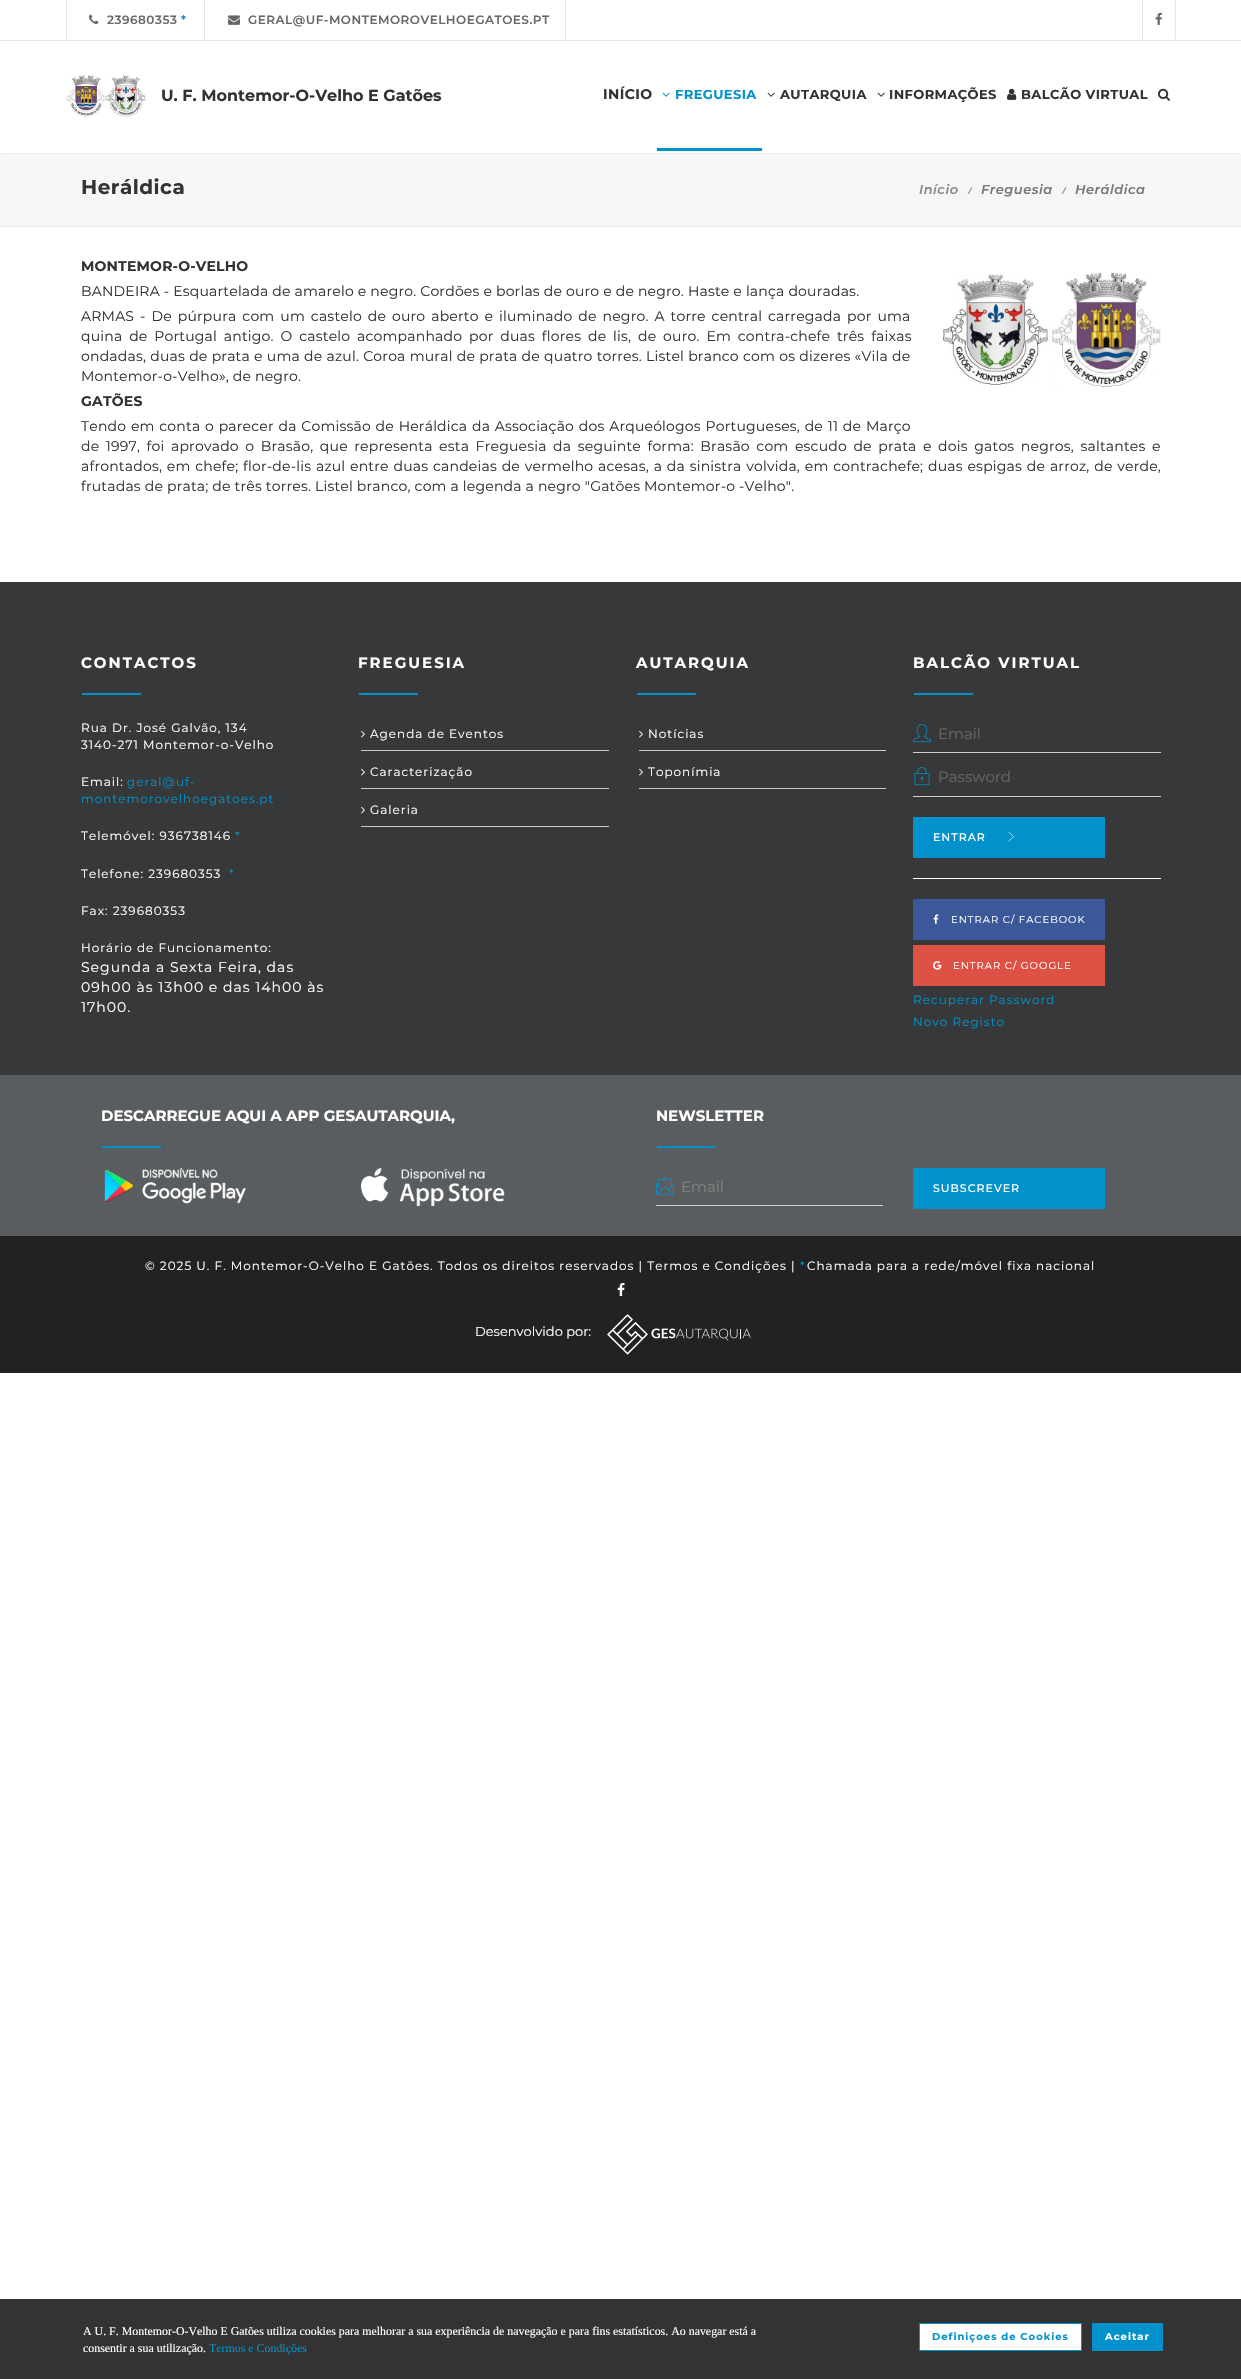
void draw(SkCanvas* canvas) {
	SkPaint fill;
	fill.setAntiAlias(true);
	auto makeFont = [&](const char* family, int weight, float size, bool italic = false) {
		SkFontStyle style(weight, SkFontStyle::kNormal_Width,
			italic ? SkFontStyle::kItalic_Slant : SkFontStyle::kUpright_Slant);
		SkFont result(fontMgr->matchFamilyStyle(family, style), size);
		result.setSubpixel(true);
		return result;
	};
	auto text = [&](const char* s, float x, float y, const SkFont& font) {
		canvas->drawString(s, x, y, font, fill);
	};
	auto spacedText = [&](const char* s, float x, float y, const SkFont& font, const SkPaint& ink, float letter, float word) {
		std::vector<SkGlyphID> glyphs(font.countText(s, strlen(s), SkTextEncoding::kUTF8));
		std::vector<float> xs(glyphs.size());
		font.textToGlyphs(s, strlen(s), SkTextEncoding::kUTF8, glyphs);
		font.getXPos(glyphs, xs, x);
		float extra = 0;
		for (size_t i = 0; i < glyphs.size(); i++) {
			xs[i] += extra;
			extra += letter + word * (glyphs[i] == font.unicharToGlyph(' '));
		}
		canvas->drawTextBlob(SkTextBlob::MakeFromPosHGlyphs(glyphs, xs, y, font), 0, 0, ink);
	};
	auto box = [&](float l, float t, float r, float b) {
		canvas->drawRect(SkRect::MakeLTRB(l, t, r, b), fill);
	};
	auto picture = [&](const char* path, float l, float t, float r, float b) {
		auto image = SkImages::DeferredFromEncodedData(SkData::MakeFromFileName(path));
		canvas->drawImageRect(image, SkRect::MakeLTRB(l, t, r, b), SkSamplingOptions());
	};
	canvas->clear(0xFFFFFFFF);
	fill.setColor(0xFFE6E6E6);
	box(0, 40, 1241, 41);
	box(66, 0, 67, 40);
	picture("image0.png", 89, 14, 99, 24);
	box(565, 0, 566, 40);
	box(204, 0, 205, 40);
	picture("image1.png", 228, 15, 240, 25);
	box(1175, 0, 1176, 39);
	box(1142, 0, 1143, 39);
	picture("image2.png", 1155, 12, 1162, 25);
	fill.setColor(0xFFEDEDED);
	box(1, 153, 1240, 154);
	picture("image3.png", 66, 75, 146, 117);
	fill.setColor(0xFF0292CB);
	box(657, 148, 762, 151);
	picture("image4.png", 662, 92, 670, 97);
	picture("image5.png", 767, 92, 775, 97);
	picture("image5.png", 877, 92, 885, 97);
	picture("image6.png", 1007, 88, 1017, 100);
	picture("image7.png", 1158, 88, 1170, 101);
	fill.setColor(0xFFF6F6F6);
	box(0, 154, 1241, 226);
	fill.setColor(0xFFEAEAEA);
	box(0, 226, 1241, 227);
	picture("image8.png", 942, 272, 1161, 387);
	fill.setColor(0xFF363839);
	box(0, 582, 1241, 1075);
	fill.setColor(0xFF0292CB);
	box(82, 693, 141, 695);
	box(359, 693, 418, 695);
	fill.setColor(0xFFCCCCCC);
	box(361, 750, 609, 751);
	picture("image9.png", 361, 730, 365, 738);
	box(361, 788, 609, 789);
	picture("image9.png", 361, 768, 365, 776);
	box(361, 826, 609, 827);
	picture("image9.png", 361, 806, 365, 814);
	fill.setColor(0xFF0292CB);
	box(637, 693, 696, 695);
	fill.setColor(0xFFCCCCCC);
	box(639, 750, 886, 751);
	picture("image9.png", 639, 730, 643, 738);
	box(639, 788, 886, 789);
	picture("image9.png", 639, 768, 643, 776);
	fill.setColor(0xFF0292CB);
	box(914, 693, 973, 695);
	picture("image10.png", 913, 724, 931, 743);
	fill.setColor(0xFFD0D0D0);
	box(913, 752, 1161, 753);
	picture("image11.png", 914, 767, 930, 786);
	box(913, 796, 1161, 797);
	fill.setColor(0xFF0292CB);
	box(913, 817, 1105, 858);
	picture("image12.png", 1008, 831, 1014, 842);
	fill.setColor(0xFFFFFFFF);
	box(913, 878, 1161, 879);
	fill.setColor(0xFF3B5998);
	box(913, 899, 1105, 940);
	picture("image13.png", 933, 914, 939, 924);
	fill.setColor(0xFFDE5246);
	box(913, 945, 1105, 986);
	picture("image14.png", 933, 961, 942, 970);
	fill.setColor(0xFF5A5D5F);
	box(0, 1075, 1241, 1236);
	fill.setColor(0xFF0292CB);
	box(102, 1146, 161, 1148);
	picture("image15.png", 104, 1168, 246, 1204);
	picture("image16.png", 361, 1168, 505, 1206);
	box(657, 1146, 716, 1148);
	picture("image17.png", 656, 1177, 674, 1196);
	fill.setColor(0xFFD0D0D0);
	box(656, 1205, 883, 1206);
	fill.setColor(0xFF0292CB);
	box(913, 1168, 1105, 1209);
	fill.setColor(0xFF222222);
	box(0, 1236, 1241, 1373);
	picture("image18.png", 617, 1283, 625, 1296);
	picture("image19.png", 607, 1314, 751, 1355);
	fill.setColor(0xFF333333);
	box(0, 2299, 1241, 2379);
	fill.setColor(0xFFFFFFFF);
	canvas->drawRect(SkRect::MakeLTRB(919.5f, 2323.5f, 1081.5f, 2350.5f), fill);
	fill.setStyle(SkPaint::kStroke_Style);
	fill.setStrokeWidth(1);
	fill.setColor(0xFF0292CB);
	canvas->drawRect(SkRect::MakeLTRB(919.5f, 2323.5f, 1081.5f, 2350.5f), fill);
	fill.setStyle(SkPaint::kFill_Style);
	box(1092, 2323, 1163, 2351);
	auto font1 = makeFont("Montserrat", 600, 12);
	fill.setColor(0xFF686868);
	spacedText("239680353", 107, 24, font1, fill, 0.5f, 0);
	fill.setColor(0xFF0292CB);
	spacedText("*", 181, 24, font1, fill, 0.5f, 0);
	fill.setColor(0xFF686868);
	spacedText("GERAL@UF-MONTEMOROVELHOEGATOES.PT", 248, 24, font1, fill, 0.5f, 0);
	auto font2 = makeFont("Montserrat", 700, 16);
	fill.setColor(0xFF333333);
	text("U. F. Montemor-O-Velho E Gatões", 161, 101, font2);
	auto font3 = makeFont("Montserrat", 700, 14);
	spacedText("INÍCIO", 603, 99, font3, fill, 0.4f, 0);
	auto font4 = makeFont("Montserrat", 700, 13);
	fill.setColor(0xFF0292CB);
	spacedText("FREGUESIA", 675, 99, font4, fill, 0.4f, 0);
	fill.setColor(0xFF333333);
	spacedText("AUTARQUIA", 780, 99, font4, fill, 0.4f, 0);
	spacedText("INFORMAÇÕES", 889, 99, font4, fill, 0.4f, 0);
	spacedText("BALCÃO VIRTUAL", 1021, 99, font4, fill, 0.4f, 0);
	auto font5 = makeFont("Montserrat", 700, 20);
	spacedText("Heráldica", 81, 194, font5, fill, 0.5f, 0);
	auto font6 = makeFont("Montserrat", 600, 13, true);
	fill.setColor(0xFF888888);
	spacedText("Início", 919, 194, font6, fill, 0.5f, 0);
	auto font7 = makeFont("Open Sans", 700, 9, true);
	fill.setColor(0xFF999999);
	spacedText("/", 968, 194, font7, fill, 0.5f, 0);
	fill.setColor(0xFF777777);
	spacedText("Freguesia", 981, 194, font6, fill, 0.5f, 0);
	fill.setColor(0xFF999999);
	spacedText("/", 1062, 194, font7, fill, 0.5f, 0);
	fill.setColor(0xFF777777);
	spacedText("Heráldica", 1075, 194, font6, fill, 0.5f, 0);
	fill.setColor(0xFF333333);
	spacedText("MONTEMOR-O-VELHO", 81, 271, font3, fill, 0.2f, 0);
	auto font8 = makeFont("Montserrat", 400, 14);
	spacedText("BANDEIRA - Esquartelada de amarelo e negro. Cordões e borlas de ouro e de negro. Haste e lança douradas.", 81, 296, font8, fill, 0.2f, 0);
	spacedText("ARMAS - De púrpura com um castelo de ouro aberto e iluminado de negro. A torre central carregada por uma", 81, 321, font8, fill, 0.2f, 2);
	spacedText("quina de Portugal antigo. O castelo acompanhado por duas flores de lis, de ouro. Em contra-chefe três faixas", 81, 341, font8, fill, 0.2f, 2.9f);
	spacedText("ondadas, duas de prata e uma de azul. Coroa mural de prata de quatro torres. Listel branco com os dizeres «Vila de", 81, 361, font8, fill, 0.2f, 0.25f);
	spacedText("Montemor-o-Velho», de negro.", 81, 381, font8, fill, 0.2f, 0);
	spacedText("GATÕES", 81, 406, font3, fill, 0.2f, 0);
	spacedText("Tendo em conta o parecer da Comissão de Heráldica da Associação dos Arqueólogos Portugueses, de 11 de Março", 81, 431, font8, fill, 0.2f, 0.8f);
	spacedText("de 1997, foi aprovado o Brasão, que representa esta Freguesia da seguinte forma: Brasão com escudo de prata e dois gatos negros, saltantes e", 81, 451, font8, fill, 0.2f, 2.6f);
	spacedText("afrontados, em chefe; flor-de-lis azul entre duas candeias de vermelho acesas, a da sinistra volvida, em contrachefe; duas espigas de arroz, de verde,", 81, 471, font8, fill, 0.2f, 0.85f);
	spacedText("frutadas de prata; de três torres. Listel branco, com a legenda a negro \"Gatões Montemor-o -Velho\".", 81, 491, font8, fill, 0.2f, 0);
	auto font9 = makeFont("Montserrat", 700, 15);
	fill.setColor(0xFFFFFFFF);
	spacedText("CONTACTOS", 81, 668, font9, fill, 2, 0);
	auto font10 = makeFont("Montserrat", 400, 12);
	spacedText("Rua Dr. José Galvão, 134", 81, 732, font10, fill, 1, 0);
	spacedText("3140-271 Montemor-o-Velho", 81, 749, font10, fill, 1, 0);
	spacedText("Email:", 81, 786, font10, fill, 1, 0);
	fill.setColor(0xFF0292CB);
	spacedText("geral@uf-", 127, 786, font10, fill, 1, 0);
	spacedText("montemorovelhoegatoes.pt", 81, 803, font10, fill, 1, 0);
	fill.setColor(0xFFFFFFFF);
	spacedText("Telemóvel: 936738146", 81, 840, font10, fill, 1, 0);
	fill.setColor(0xFF0292CB);
	spacedText("*", 235, 840, font10, fill, 1, 0);
	fill.setColor(0xFFFFFFFF);
	spacedText("Telefone: 239680353", 81, 878, font10, fill, 1, 0);
	fill.setColor(0xFF0292CB);
	spacedText("*", 229, 878, font10, fill, 1, 0);
	fill.setColor(0xFFFFFFFF);
	spacedText("Fax: 239680353", 81, 915, font10, fill, 1, 0);
	spacedText("Horário de Funcionamento:", 81, 952, font10, fill, 1, 0);
	spacedText("Segunda a Sexta Feira, das", 81, 972, font8, fill, 1, 0);
	spacedText("09h00 às 13h00 e das 14h00 às", 81, 992, font8, fill, 1, 0);
	spacedText("17h00.", 81, 1012, font8, fill, 1, 0);
	spacedText("FREGUESIA", 358, 668, font9, fill, 2, 0);
	spacedText("Agenda de Eventos", 370, 738, font10, fill, 1, 0);
	spacedText("Caracterização", 370, 776, font10, fill, 1, 0);
	spacedText("Galeria", 370, 814, font10, fill, 1, 0);
	spacedText("AUTARQUIA", 636, 668, font9, fill, 2, 0);
	spacedText("Notícias", 648, 738, font10, fill, 1, 0);
	spacedText("Toponímia", 648, 776, font10, fill, 1, 0);
	spacedText("BALCÃO VIRTUAL", 913, 668, font9, fill, 2, 0);
	auto font11 = makeFont("Montserrat", 400, 15);
	fill.setColor(0xFF686868);
	text("Email", 938, 739, font11);
	text("Password", 938, 782, font11);
	auto font12 = makeFont("Montserrat", 500, 11);
	fill.setColor(0xFFFFFFFF);
	spacedText("ENTRAR", 933, 841, font12, fill, 1, 0);
	auto font13 = makeFont("Montserrat", 400, 10);
	spacedText("ENTRAR C/ FACEBOOK", 951, 923, font13, fill, 1, 0);
	spacedText("ENTRAR C/ GOOGLE", 953, 969, font13, fill, 1, 0);
	fill.setColor(0xFF0292CB);
	spacedText("Recuperar Password", 913, 1004, font10, fill, 1, 0);
	spacedText("Novo Registo", 913, 1026, font10, fill, 1, 0);
	fill.setColor(0xFFFFFFFF);
	text("DESCARREGUE AQUI A APP GESAUTARQUIA,", 101, 1121, font9);
	text("NEWSLETTER", 656, 1121, font9);
	fill.setColor(0xFF808080);
	text("Email", 681, 1192, font11);
	fill.setColor(0xFFFFFFFF);
	spacedText("SUBSCREVER", 933, 1192, font12, fill, 1, 0);
	spacedText("© 2025 U. F. Montemor-O-Velho E Gatões. Todos os direitos reservados | Termos e Condições |", 145, 1270, font10, fill, 1, 0);
	fill.setColor(0xFF0292CB);
	spacedText("*", 800, 1270, font10, fill, 1, 0);
	fill.setColor(0xFFFFFFFF);
	spacedText("Chamada para a rede/móvel fixa nacional", 807, 1270, font10, fill, 1, 0);
	auto font14 = makeFont("Montserrat", 400, 13);
	text("Desenvolvido por:", 475, 1336, font14);
	auto font15 = makeFont("Liberation Serif", 400, 11.9f);
	text("A U. F. Montemor-O-Velho E Gatões utiliza cookies para melhorar a sua experiência de navegação e para fins estatísticos. Ao navegar está a", 83, 2335, font15);
	text("consentir a sua utilização.", 83, 2352, font15);
	fill.setColor(0xFF0292CB);
	text("Termos e Condições", 209, 2352, font15);
	auto font16 = makeFont("Montserrat", 700, 10);
	spacedText("Definiçoes de Cookies", 932, 2340, font16, fill, 1, 0);
	fill.setColor(0xFFFFFFFF);
	spacedText("Aceitar", 1105, 2340, font16, fill, 1, 0);
}
